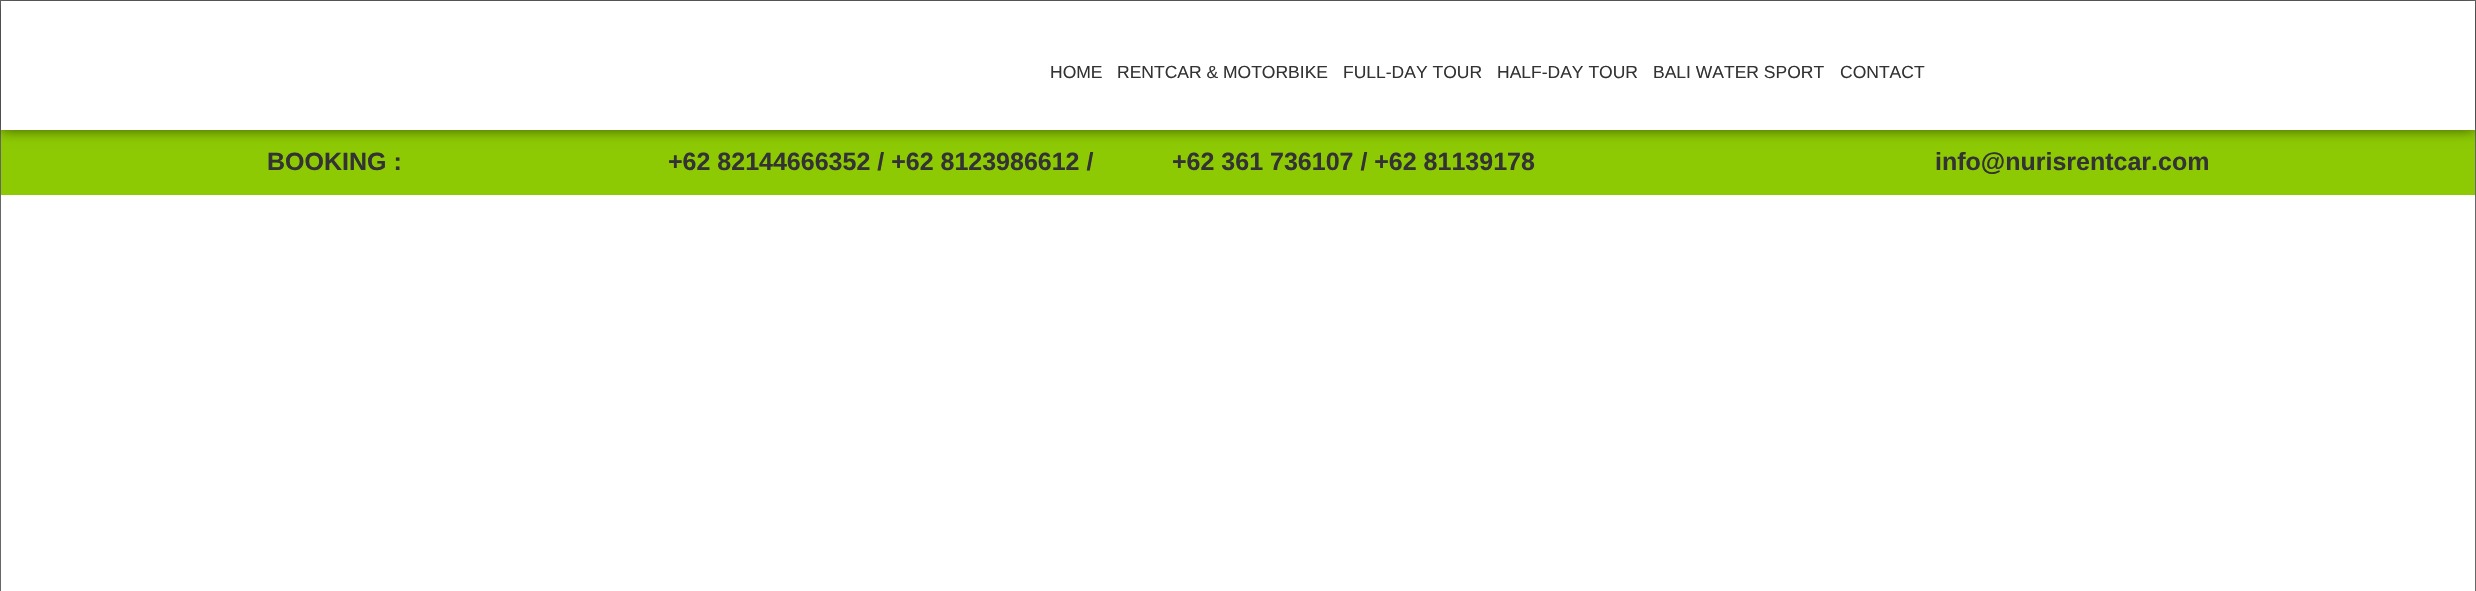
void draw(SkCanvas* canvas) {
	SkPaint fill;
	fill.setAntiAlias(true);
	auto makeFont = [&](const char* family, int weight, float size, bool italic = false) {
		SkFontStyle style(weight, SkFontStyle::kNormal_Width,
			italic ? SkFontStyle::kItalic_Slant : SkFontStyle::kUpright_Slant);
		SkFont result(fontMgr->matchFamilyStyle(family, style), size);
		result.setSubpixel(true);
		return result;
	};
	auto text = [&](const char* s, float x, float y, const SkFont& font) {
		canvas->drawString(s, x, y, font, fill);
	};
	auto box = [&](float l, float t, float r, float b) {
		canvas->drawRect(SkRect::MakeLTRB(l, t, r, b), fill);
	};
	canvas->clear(0xFFFFFFFF);
	fill.setStyle(SkPaint::kStroke_Style);
	fill.setStrokeWidth(1);
	fill.setColor(0xFF666666);
	canvas->drawRect(SkRect::MakeLTRB(0.5f, 0.5f, 2475.5f, 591.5f), fill);
	fill.setStyle(SkPaint::kFill_Style);
	fill.setColor(0xFF8DCA04);
	box(1, 130, 2475, 195);
	canvas->save();
	canvas->clipPath(SkPathBuilder(SkPathFillType::kEvenOdd).moveTo(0, 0).lineTo(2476, 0).lineTo(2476, 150).lineTo(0, 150).close().moveTo(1, 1).lineTo(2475, 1).lineTo(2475, 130).lineTo(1, 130).close().detach(), true);
	fill.setColor(0x80000000);
	fill.setMaskFilter(SkMaskFilter::MakeBlur(kNormal_SkBlurStyle, 6));
	canvas->drawRect(SkRect::MakeLTRB(1, 3, 2475, 131), fill);
	fill.setMaskFilter(nullptr);
	canvas->restore();
	auto font1 = makeFont("Liberation Sans", 400, 17.5f);
	fill.setColor(0xFF333333);
	text("HOME", 1050, 78, font1);
	text("RENTCAR & MOTORBIKE", 1117, 78, font1);
	text("FULL-DAY TOUR", 1343, 78, font1);
	text("HALF-DAY TOUR", 1497, 78, font1);
	text("BALI WATER SPORT", 1653, 78, font1);
	text("CONTACT", 1840, 78, font1);
	auto font2 = makeFont("Liberation Sans", 700, 25);
	text("BOOKING :", 267, 170, font2);
	text("+62 82144666352 / +62 8123986612 /", 668, 170, font2);
	text("+62 361 736107 / +62 81139178", 1172, 170, font2);
	text("info@nurisrentcar.com", 1935, 170, font2);
}
